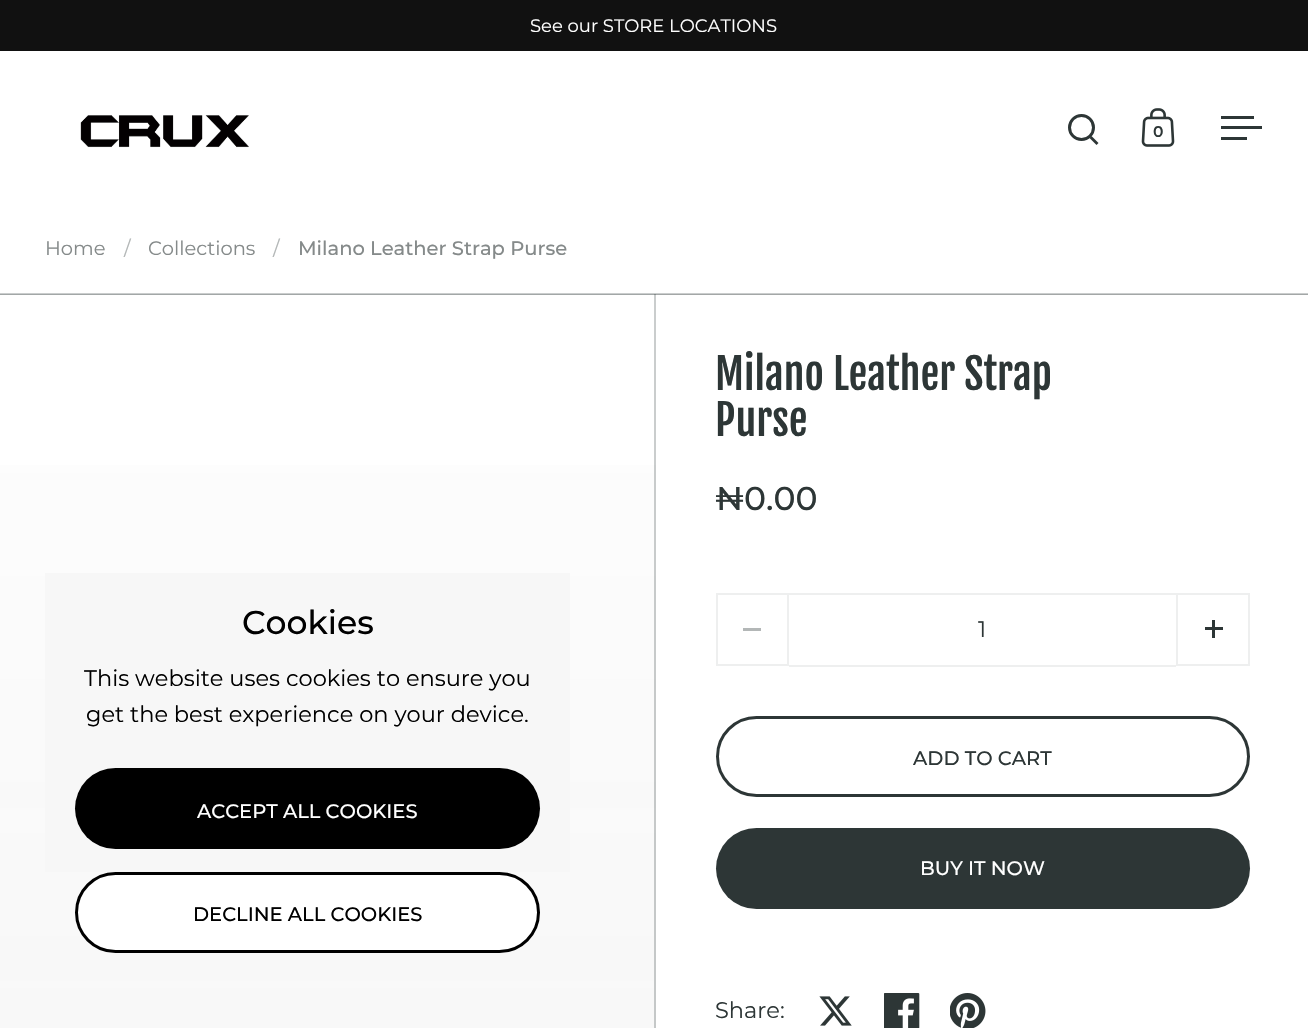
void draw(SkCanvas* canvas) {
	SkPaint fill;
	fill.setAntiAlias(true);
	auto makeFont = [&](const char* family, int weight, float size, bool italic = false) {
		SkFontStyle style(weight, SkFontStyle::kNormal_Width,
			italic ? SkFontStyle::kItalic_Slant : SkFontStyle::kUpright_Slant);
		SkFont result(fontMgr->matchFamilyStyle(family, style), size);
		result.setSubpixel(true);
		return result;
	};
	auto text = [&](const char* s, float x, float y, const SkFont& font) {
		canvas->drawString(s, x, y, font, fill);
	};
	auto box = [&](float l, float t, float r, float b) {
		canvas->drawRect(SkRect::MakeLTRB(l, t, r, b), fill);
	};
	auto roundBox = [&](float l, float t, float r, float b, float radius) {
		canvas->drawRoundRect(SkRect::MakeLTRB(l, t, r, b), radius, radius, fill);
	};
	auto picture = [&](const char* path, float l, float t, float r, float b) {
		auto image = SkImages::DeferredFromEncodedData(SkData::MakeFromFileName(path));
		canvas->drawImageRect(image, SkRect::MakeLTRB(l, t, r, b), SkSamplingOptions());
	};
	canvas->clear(0xFFFFFFFF);
	fill.setColor(0xFF111111);
	box(0, 0, 1308, 51);
	picture("image0.png", 80, 115, 249, 148);
	fill.setStyle(SkPaint::kStroke_Style);
	fill.setStrokeWidth(3);
	fill.setColor(0xFF2D3636);
	canvas->drawCircle(1081.5f, 127.5f, 12, fill);
	fill.setStyle(SkPaint::kFill_Style);
	canvas->drawPath(SkPathBuilder().moveTo(1089.5f, 138).lineTo(1091.5f, 136).lineTo(1098.5f, 143).lineTo(1096.5f, 145).close().detach(), fill);
	picture("image1.png", 1141, 108, 1175, 147);
	box(1221, 116, 1254, 119);
	box(1221, 126, 1262, 129);
	box(1221, 137, 1247, 140);
	{
		const SkColor colors[] = {0xB3FFFFFF, 0x66EBEBEB};
		const float stops[] = {0, 1};
		const SkPoint ends[] = {{328, 293}, {328, 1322}};
		fill.setShader(SkGradientShader::MakeLinear(ends, colors, stops, 2, SkTileMode::kClamp));
		fill.setAlpha(255);
	}
	box(0, 465, 656, 1028);
	fill.setShader(nullptr);
	fill.setColor(0x402D3636);
	box(654, 294, 656, 1028);
	box(0, 294, 656, 295);
	fill.setColor(0xFFCBCDCD);
	box(656, 294, 1308, 295);
	fill.setColor(0x402D3636);
	box(0, 293, 1308, 295);
	fill.setColor(0xFFF7F7F7);
	box(45, 573, 570, 872);
	fill.setColor(0xFF000000);
	roundBox(75, 768, 540, 849, 40.5f);
	fill.setColor(0xFFFFFFFF);
	canvas->drawRoundRect(SkRect::MakeLTRB(76.5f, 873.5f, 538.5f, 951.5f), 39, 39, fill);
	fill.setStyle(SkPaint::kStroke_Style);
	fill.setColor(0xFF000000);
	canvas->drawRoundRect(SkRect::MakeLTRB(76.5f, 873.5f, 538.5f, 951.5f), 39, 39, fill);
	fill.setStrokeWidth(2);
	fill.setColor(0xFFEEEFEF);
	canvas->drawRect(SkRect::MakeLTRB(717, 594, 788, 665), fill);
	fill.setStyle(SkPaint::kFill_Style);
	fill.setColor(0xFFB3B7B7);
	box(743, 628, 761, 631);
	fill.setColor(0xFFEEEFEF);
	box(789, 593, 1176, 595);
	box(789, 665, 1176, 667);
	fill.setStyle(SkPaint::kStroke_Style);
	canvas->drawRect(SkRect::MakeLTRB(1177, 594, 1249, 665), fill);
	fill.setStyle(SkPaint::kFill_Style);
	fill.setColor(0xFF2D3636);
	box(1212, 620, 1215, 638);
	box(1205, 627, 1223, 630);
	fill.setStyle(SkPaint::kStroke_Style);
	fill.setStrokeWidth(3);
	canvas->drawRoundRect(SkRect::MakeLTRB(717.5f, 717.5f, 1248.5f, 795.5f), 39, 39, fill);
	fill.setStyle(SkPaint::kFill_Style);
	roundBox(716, 828, 1250, 909, 40.5f);
	picture("image2.png", 819, 996, 852, 1026);
	picture("image3.png", 884, 993, 920, 1028);
	picture("image4.png", 950, 993, 986, 1028);
	auto font1 = makeFont("Montserrat", 400, 18);
	fill.setColor(0xFFFFFFFF);
	text("See our STORE LOCATIONS", 530, 32, font1);
	auto font2 = makeFont("Montserrat", 700, 15);
	fill.setColor(0xFF2D3636);
	text("0", 1153, 137, font2);
	auto font3 = makeFont("Montserrat", 400, 19.5f);
	fill.setColor(0xFF858A8A);
	text("Home", 45, 255, font3);
	fill.setColor(0xFFB3B7B7);
	text("/", 124, 255, font3);
	fill.setColor(0xFF858A8A);
	text("Collections", 148, 255, font3);
	fill.setColor(0xFFB3B7B7);
	text("/", 273, 255, font3);
	auto font4 = makeFont("Montserrat", 500, 19.5f);
	fill.setColor(0xFF858A8A);
	text("Milano Leather Strap Purse", 298, 255, font4);
	auto font5 = makeFont("Montserrat", 500, 33);
	fill.setColor(0xFF000000);
	text("Cookies", 242, 634, font5);
	auto font6 = makeFont("Montserrat", 400, 22.5f);
	text("This website uses cookies to ensure you", 84, 686, font6);
	text("get the best experience on your device.", 86, 722, font6);
	fill.setColor(0xFFFFFFFF);
	text("ACCEPT ALL COOKIES", 197, 818, font4);
	fill.setColor(0xFF000000);
	text("DECLINE ALL COOKIES", 193, 921, font4);
	auto font7 = makeFont("Fjalla One", 400, 42);
	fill.setColor(0xFF2D3636);
	text("Milano Leather Strap", 715, 390, font7);
	text("Purse", 715, 436, font7);
	text("₦0.00", 715, 510, font5);
	text("1", 978, 637, font6);
	text("ADD TO CART", 913, 765, font4);
	fill.setColor(0xFFFFFFFF);
	text("BUY IT NOW", 920, 875, font4);
	fill.setColor(0xFF2D3636);
	text("Share:", 715, 1018, font6);
}
